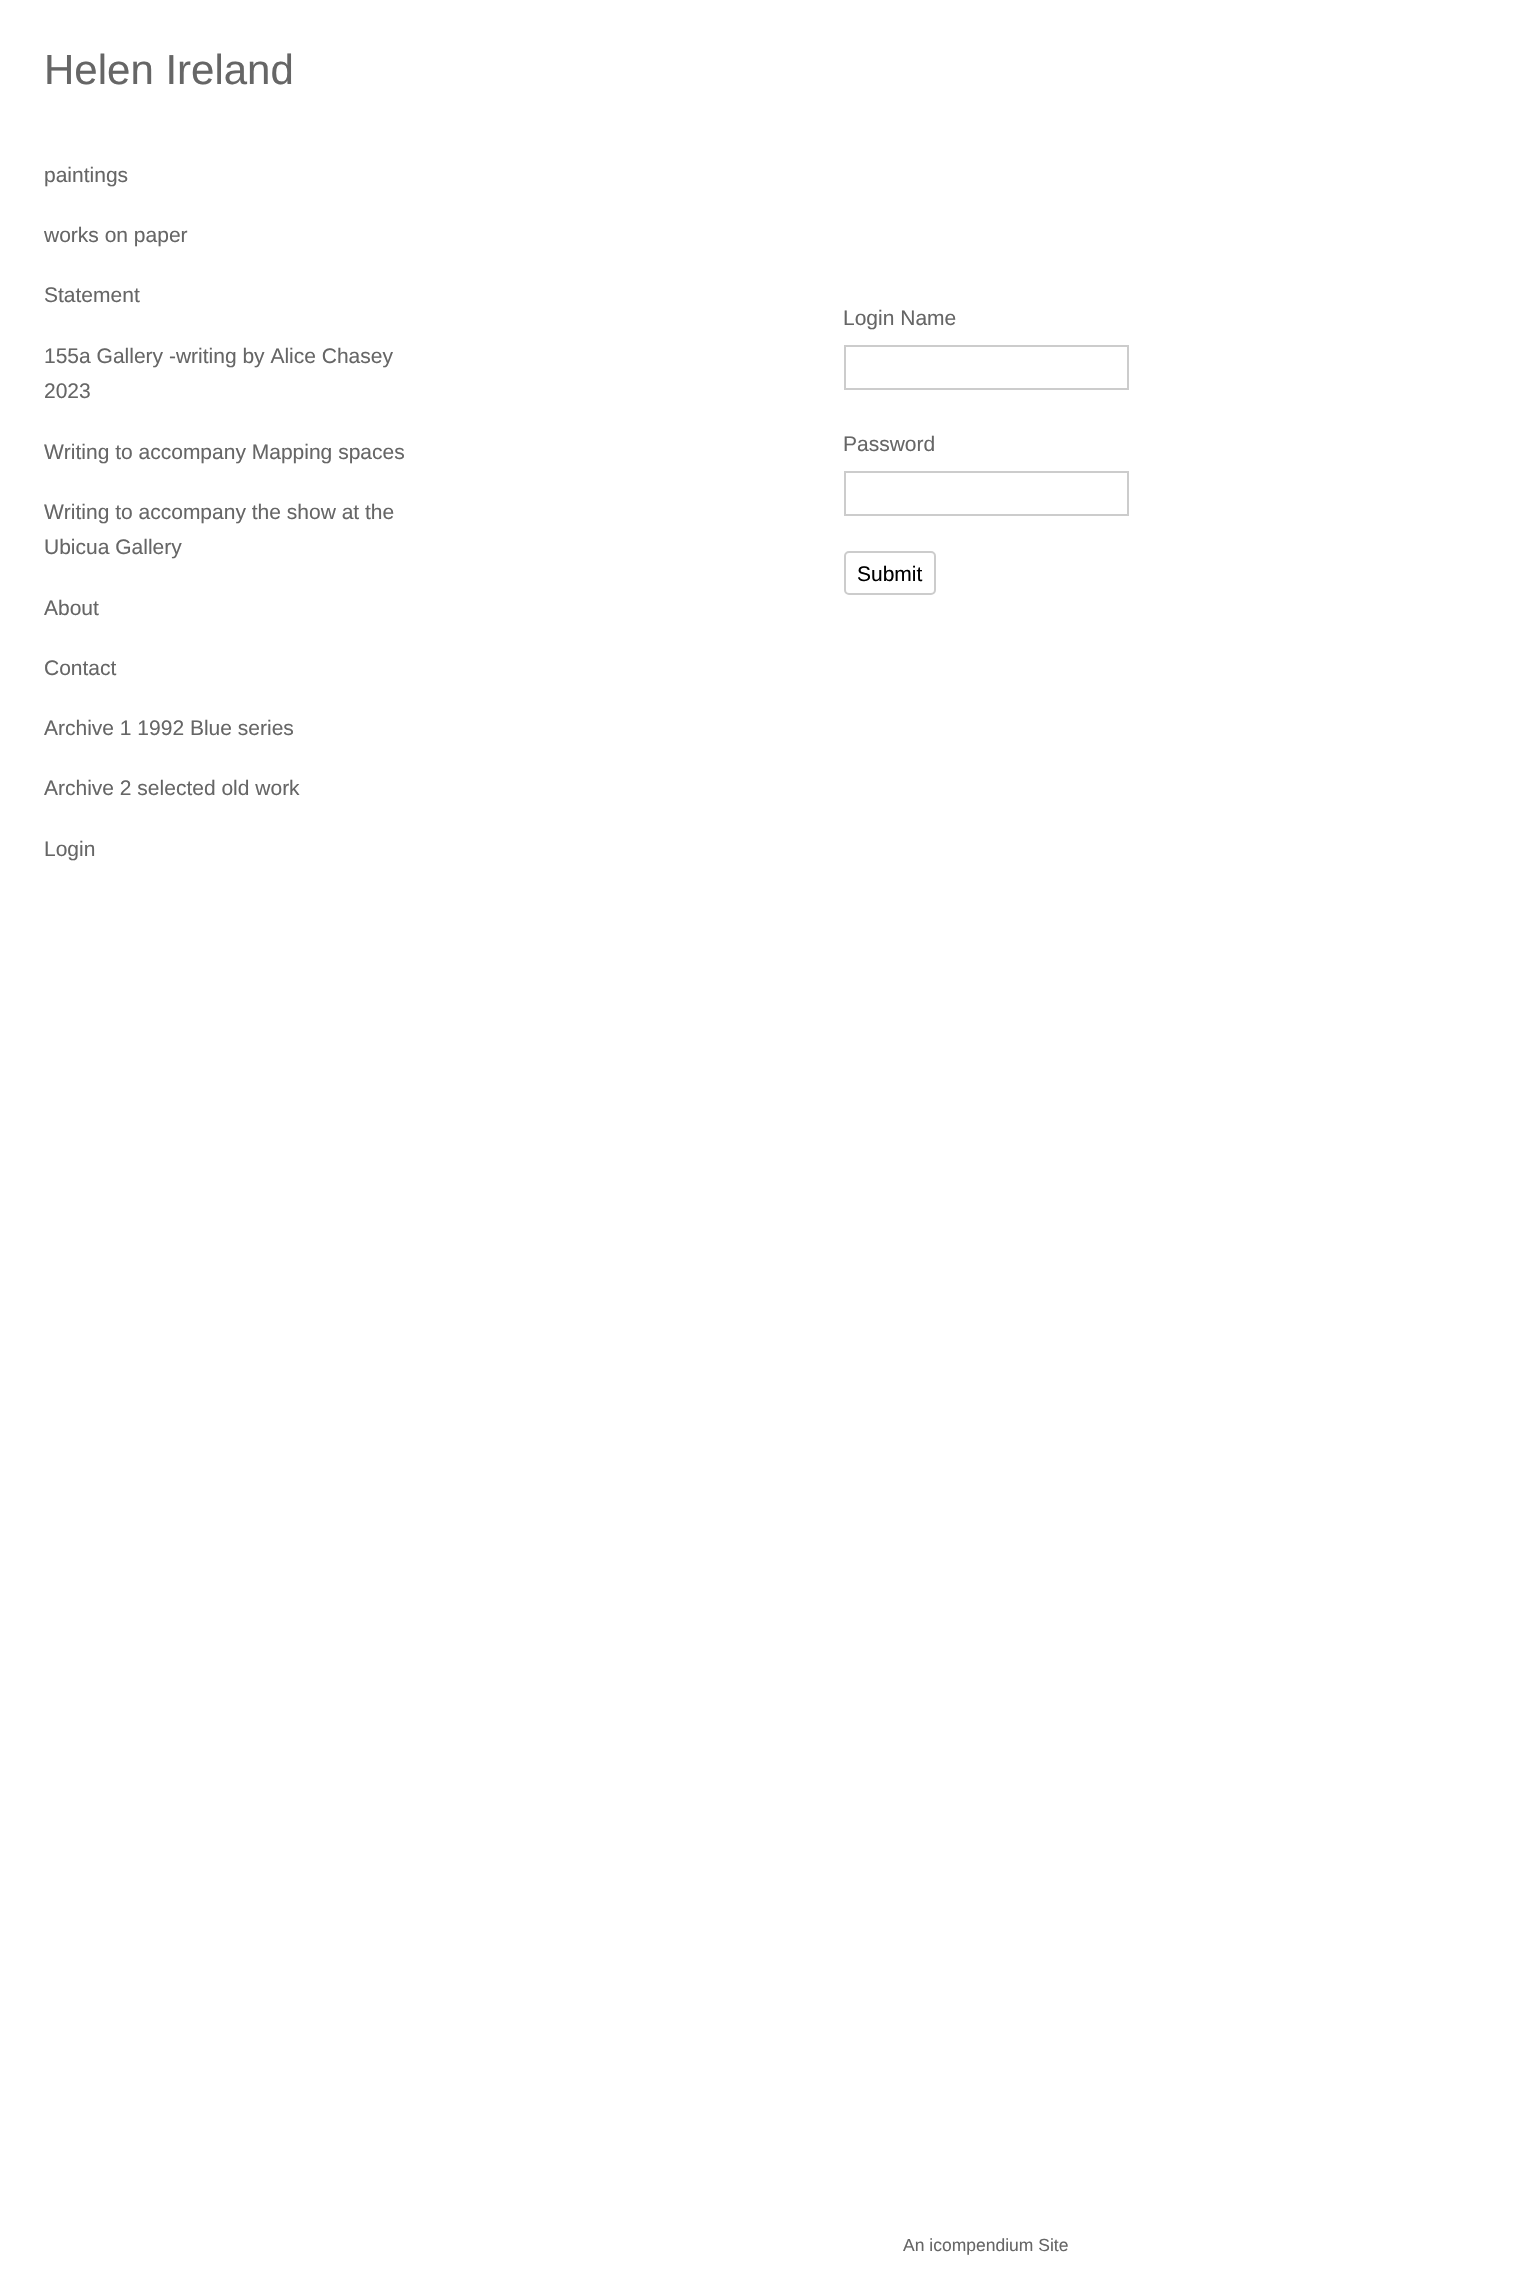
void draw(SkCanvas* canvas) {
	SkPaint fill;
	fill.setAntiAlias(true);
	auto makeFont = [&](const char* family, int weight, float size, bool italic = false) {
		SkFontStyle style(weight, SkFontStyle::kNormal_Width,
			italic ? SkFontStyle::kItalic_Slant : SkFontStyle::kUpright_Slant);
		SkFont result(fontMgr->matchFamilyStyle(family, style), size);
		result.setSubpixel(true);
		return result;
	};
	auto text = [&](const char* s, float x, float y, const SkFont& font) {
		canvas->drawString(s, x, y, font, fill);
	};
	canvas->clear(0xFFFFFFFF);
	fill.setStyle(SkPaint::kStroke_Style);
	fill.setStrokeWidth(2);
	fill.setColor(0xFFCCCCCC);
	canvas->drawRect(SkRect::MakeLTRB(845, 346, 1128, 389), fill);
	canvas->drawRect(SkRect::MakeLTRB(845, 472, 1128, 515), fill);
	canvas->drawRoundRect(SkRect::MakeLTRB(845, 552, 935, 594), 4, 4, fill);
	auto font1 = makeFont("Liberation Sans", 400, 42);
	fill.setStyle(SkPaint::kFill_Style);
	fill.setColor(0xFF666666);
	text("Helen Ireland", 44, 84, font1);
	auto font2 = makeFont("Liberation Sans", 400, 21);
	text("paintings", 44, 182, font2);
	text("works on paper", 44, 242, font2);
	text("Statement", 44, 302, font2);
	text("155a Gallery -writing by Alice Chasey", 44, 363, font2);
	text("2023", 44, 398, font2);
	text("Writing to accompany Mapping spaces", 44, 459, font2);
	text("Writing to accompany the show at the", 44, 519, font2);
	text("Ubicua Gallery", 44, 554, font2);
	text("About", 44, 615, font2);
	text("Contact", 44, 675, font2);
	text("Archive 1 1992 Blue series", 44, 735, font2);
	text("Archive 2 selected old work", 44, 795, font2);
	text("Login", 44, 856, font2);
	text("Login Name", 843, 325, font2);
	text("Password", 843, 451, font2);
	fill.setColor(0xFF000000);
	text("Submit", 857, 581, font2);
	auto font3 = makeFont("Liberation Sans", 400, 17.5f);
	fill.setColor(0xFF666666);
	text("An icompendium Site", 903, 2251, font3);
}
